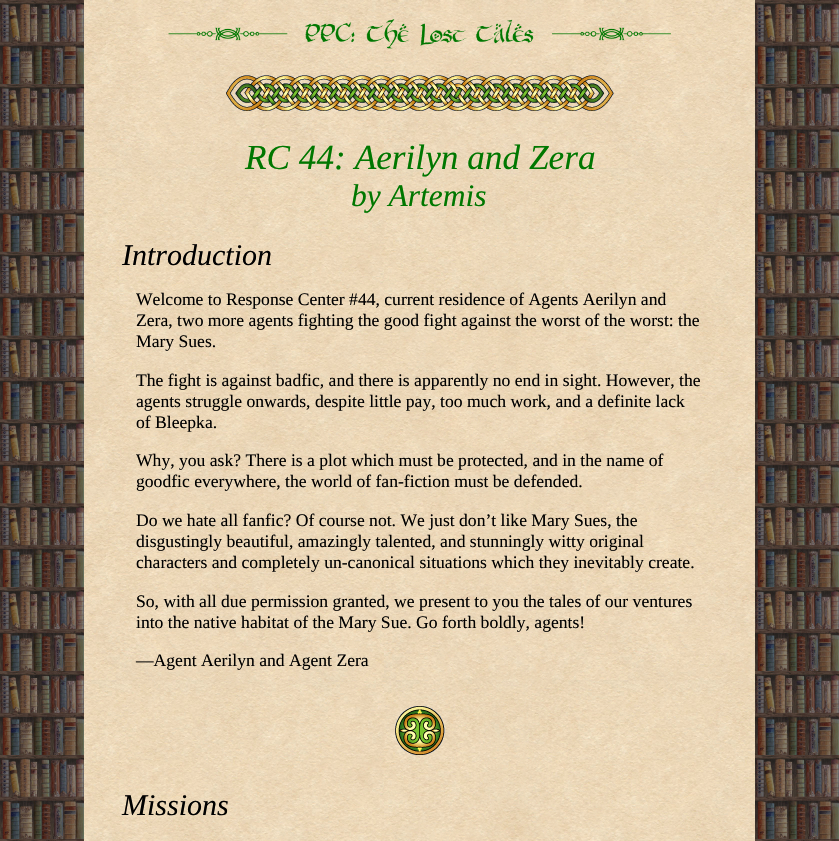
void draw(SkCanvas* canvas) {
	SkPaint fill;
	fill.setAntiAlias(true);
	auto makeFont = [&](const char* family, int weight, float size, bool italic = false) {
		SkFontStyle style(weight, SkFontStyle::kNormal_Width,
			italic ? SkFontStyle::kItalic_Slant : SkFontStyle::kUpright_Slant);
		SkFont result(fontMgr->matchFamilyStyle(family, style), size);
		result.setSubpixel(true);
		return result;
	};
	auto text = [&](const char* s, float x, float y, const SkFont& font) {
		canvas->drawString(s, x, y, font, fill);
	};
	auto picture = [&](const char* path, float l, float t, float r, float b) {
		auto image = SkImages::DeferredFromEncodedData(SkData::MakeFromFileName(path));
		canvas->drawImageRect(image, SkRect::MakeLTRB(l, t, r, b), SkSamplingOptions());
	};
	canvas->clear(0xFFFFFFFF);
	picture("image0.png", 84, 0, 755, 841);
	picture("image1.png", 0, 0, 839, 841);
	picture("image2.png", 168, 19, 671, 49);
	picture("image3.png", 226, 75, 614, 111);
	picture("image4.png", 395, 706, 445, 755);
	auto font1 = makeFont("Liberation Serif", 400, 35.25f, true);
	fill.setColor(0xFF007700);
	text("RC 44: Aerilyn and Zera", 245, 169, font1);
	auto font2 = makeFont("Liberation Serif", 400, 31.5f, true);
	text("by Artemis", 351, 206, font2);
	auto font3 = makeFont("Liberation Serif", 400, 30, true);
	fill.setColor(0xFF000000);
	text("Introduction", 122, 265, font3);
	auto font4 = makeFont("Liberation Serif", 400, 17.6f);
	text("Welcome to Response Center #44, current residence of Agents Aerilyn and", 136, 305, font4);
	text("Zera, two more agents fighting the good fight against the worst of the worst: the", 136, 326, font4);
	text("Mary Sues.", 136, 347, font4);
	text("The fight is against badfic, and there is apparently no end in sight. However, the", 136, 386, font4);
	text("agents struggle onwards, despite little pay, too much work, and a definite lack", 136, 407, font4);
	text("of Bleepka.", 136, 428, font4);
	text("Why, you ask? There is a plot which must be protected, and in the name of", 136, 466, font4);
	text("goodfic everywhere, the world of fan-fiction must be defended.", 136, 487, font4);
	text("Do we hate all fanfic? Of course not. We just don’t like Mary Sues, the", 136, 526, font4);
	text("disgustingly beautiful, amazingly talented, and stunningly witty original", 136, 547, font4);
	text("characters and completely un-canonical situations which they inevitably create.", 136, 568, font4);
	text("So, with all due permission granted, we present to you the tales of our ventures", 136, 607, font4);
	text("into the native habitat of the Mary Sue. Go forth boldly, agents!", 136, 628, font4);
	text("—Agent Aerilyn and Agent Zera", 136, 666, font4);
	text("Missions", 122, 815, font3);
}
